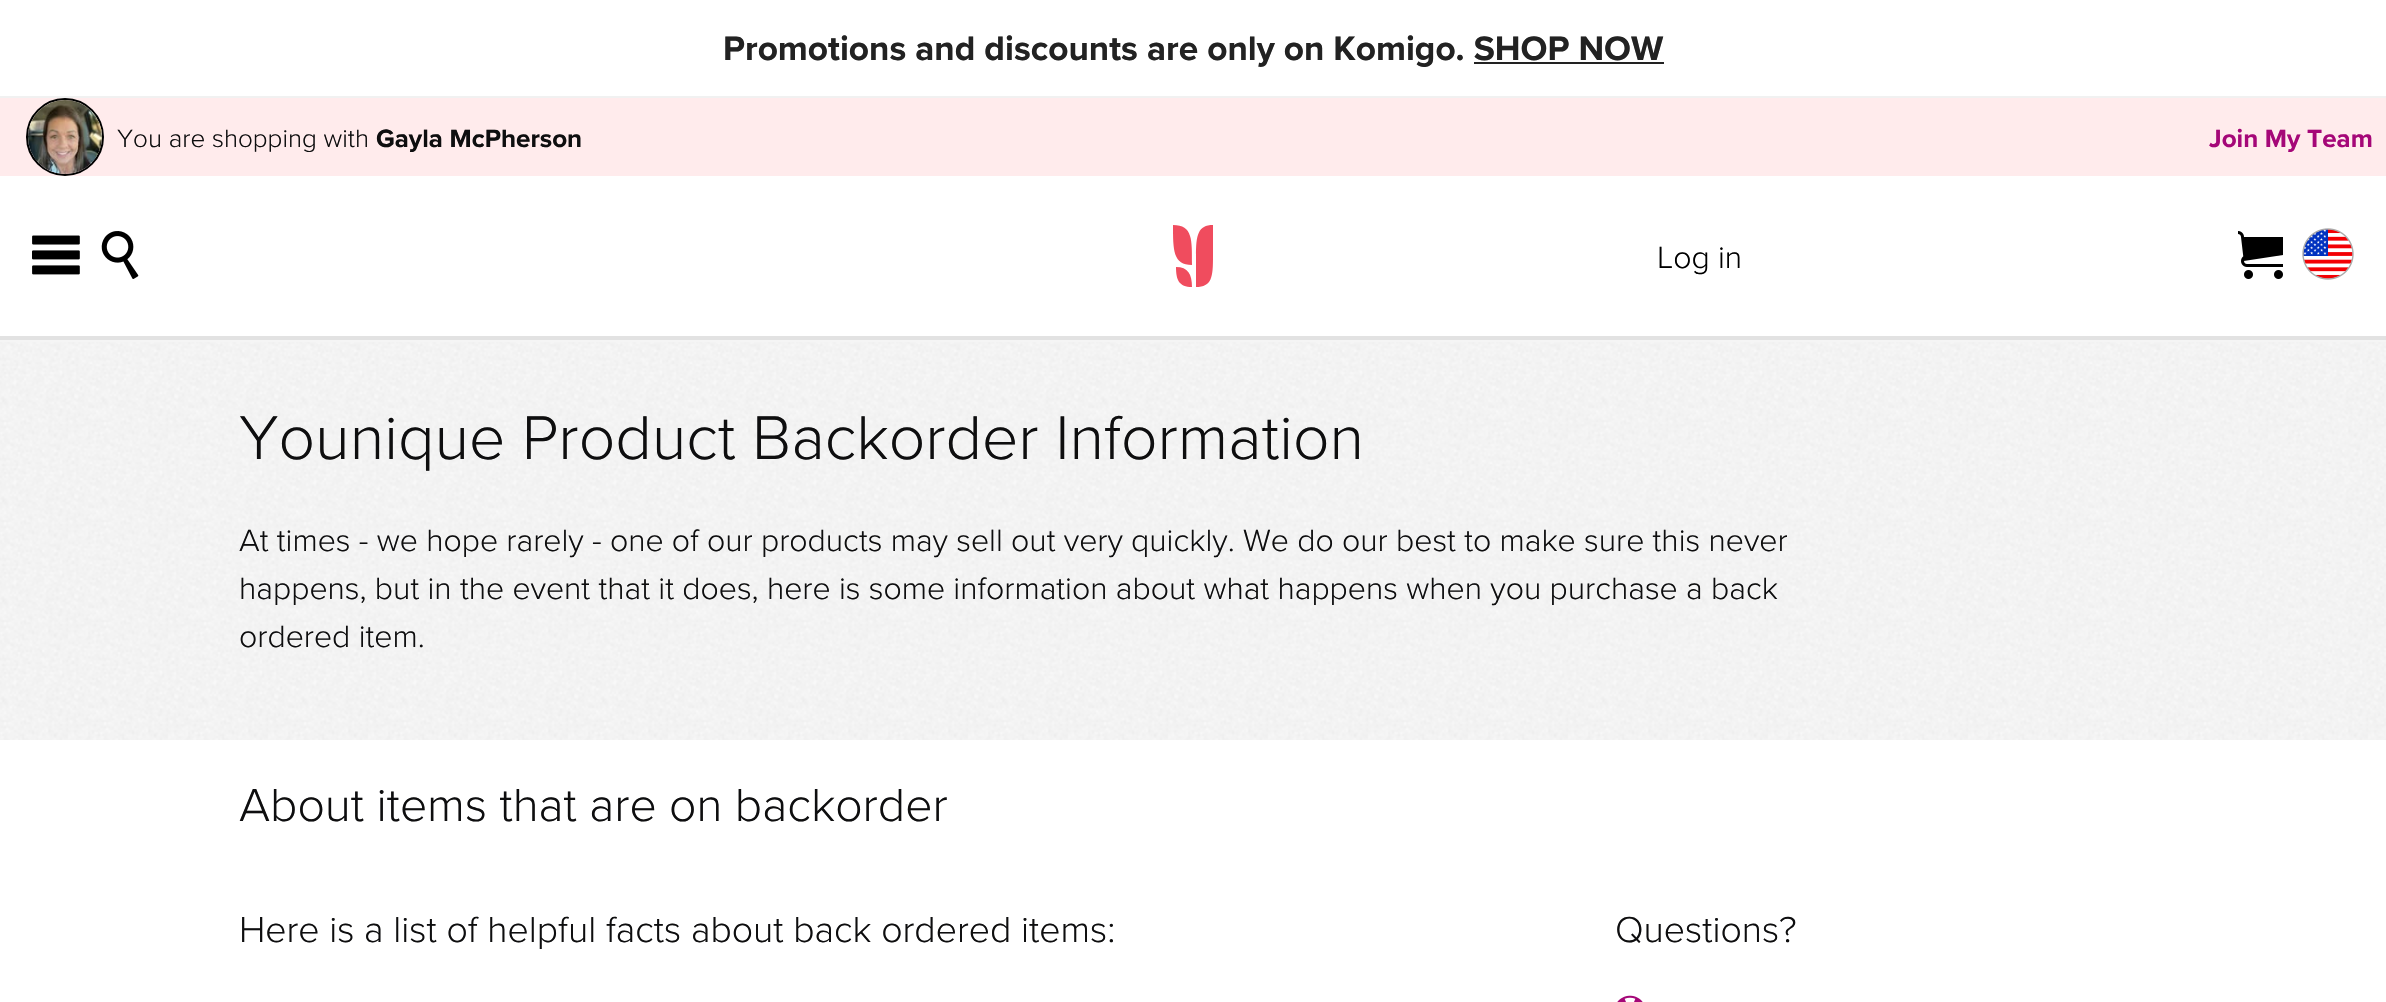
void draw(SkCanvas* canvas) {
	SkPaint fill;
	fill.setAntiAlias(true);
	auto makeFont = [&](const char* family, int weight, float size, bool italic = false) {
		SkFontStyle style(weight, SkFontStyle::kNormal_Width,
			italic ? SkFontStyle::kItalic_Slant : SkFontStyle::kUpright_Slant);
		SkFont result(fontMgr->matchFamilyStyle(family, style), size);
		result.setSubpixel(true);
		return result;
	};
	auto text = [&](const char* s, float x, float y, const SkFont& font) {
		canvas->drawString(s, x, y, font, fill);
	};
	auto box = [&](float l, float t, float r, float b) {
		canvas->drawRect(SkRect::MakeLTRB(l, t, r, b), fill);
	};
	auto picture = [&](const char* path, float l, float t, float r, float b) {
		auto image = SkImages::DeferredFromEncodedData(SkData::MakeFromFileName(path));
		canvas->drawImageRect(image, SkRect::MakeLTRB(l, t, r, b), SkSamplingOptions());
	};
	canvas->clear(0xFFFFFFFF);
	fill.setColor(0xFFF1F1F1);
	box(0, 96, 2386, 98);
	fill.setColor(0xFF222222);
	box(1474, 62, 1664, 64);
	fill.setColor(0xFFE2E2E2);
	box(0, 336, 2386, 340);
	fill.setColor(0xFFFFEBEC);
	box(0, 98, 2386, 176);
	fill.setStyle(SkPaint::kStroke_Style);
	fill.setStrokeWidth(2);
	fill.setColor(0xFF000000);
	canvas->drawCircle(65, 137, 38, fill);
	picture("image0.png", 28, 100, 102, 174);
	picture("image1.png", 32, 235, 80, 275);
	picture("image2.png", 101, 231, 139, 279);
	fill.setStyle(SkPaint::kFill_Style);
	fill.setColor(0xFFF04C5E);
	canvas->drawPath(SkPathBuilder().moveTo(1213, 225).cubicTo(1198, 225, 1196, 235, 1196, 256).lineTo(1196, 287).cubicTo(1212, 287, 1213, 277, 1213, 256).close().moveTo(1173, 225).cubicTo(1173, 250, 1173, 265, 1192, 265).cubicTo(1192, 240, 1193, 225, 1173, 225).close().moveTo(1176, 267).cubicTo(1188, 267, 1192, 274, 1192, 287).cubicTo(1179, 287, 1176, 280, 1176, 267).close().detach(), fill);
	picture("image3.png", 2238, 231, 2283, 279);
	picture("image4.png", 2302, 228, 2354, 280);
	fill.setColor(0xFFF5F5F5);
	box(0, 340, 2386, 342);
	picture("image5.png", 0, 342, 2386, 740);
	picture("image6.png", 1617, 995, 1643, 1002);
	auto font1 = makeFont("Proxima Nova", 700, 35.2f);
	fill.setColor(0xFF222222);
	text("Promotions and discounts are only on Komigo. SHOP NOW", 723, 60, font1);
	auto font2 = makeFont("Proxima Nova", 300, 26);
	fill.setColor(0xFF0E0E0F);
	text("You are shopping with", 117, 147, font2);
	auto font3 = makeFont("Proxima Nova", 700, 26);
	text("Gayla McPherson", 376, 147, font3);
	fill.setColor(0xFFA50778);
	text("Join My Team", 2209, 147, font3);
	auto font4 = makeFont("Proxima Nova", 300, 32);
	fill.setColor(0xFF000000);
	text("Log in", 1657, 268, font4);
	auto font5 = makeFont("Proxima Nova", 300, 64);
	fill.setColor(0xFF0E0E0F);
	text("Younique Product Backorder Information", 239, 459, font5);
	text("At times - we hope rarely - one of our products may sell out very quickly. We do our best to make sure this never", 239, 551, font4);
	text("happens, but in the event that it does, here is some information about what happens when you purchase a back", 239, 599, font4);
	text("ordered item.", 239, 647, font4);
	auto font6 = makeFont("Proxima Nova", 300, 48);
	text("About items that are on backorder", 239, 821, font6);
	auto font7 = makeFont("Proxima Nova", 300, 37.4f);
	text("Here is a list of helpful facts about back ordered items:", 239, 942, font7);
	text("Questions?", 1615, 942, font7);
}
